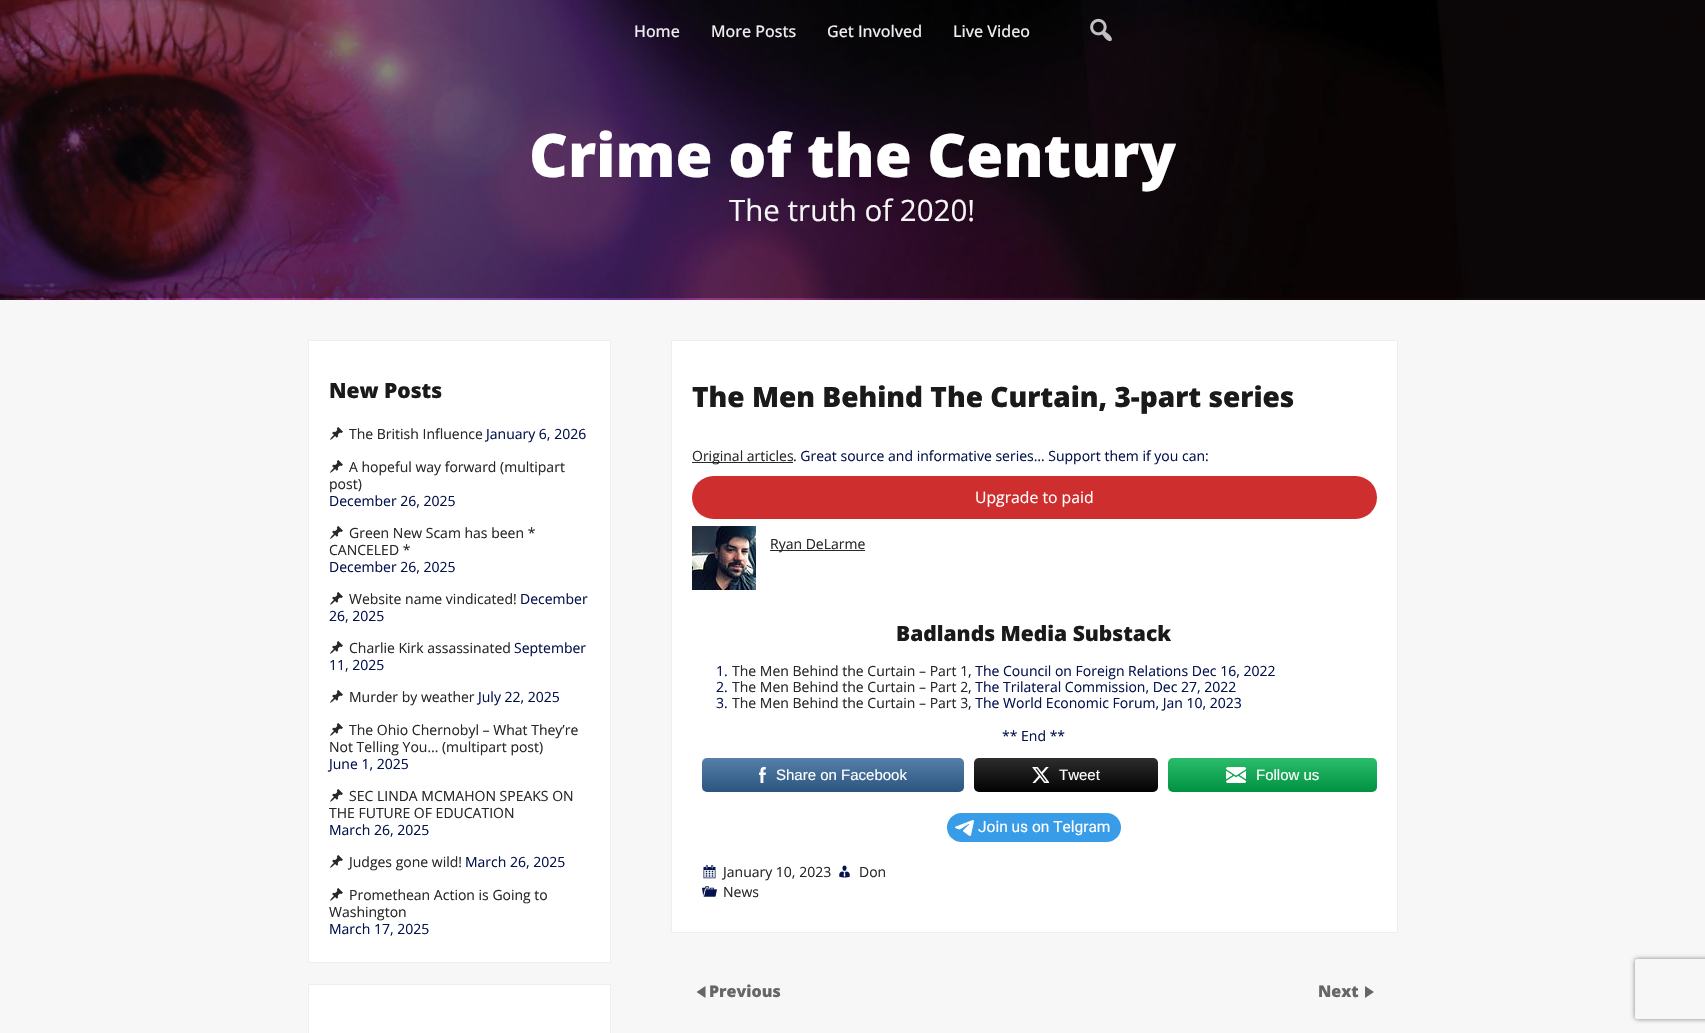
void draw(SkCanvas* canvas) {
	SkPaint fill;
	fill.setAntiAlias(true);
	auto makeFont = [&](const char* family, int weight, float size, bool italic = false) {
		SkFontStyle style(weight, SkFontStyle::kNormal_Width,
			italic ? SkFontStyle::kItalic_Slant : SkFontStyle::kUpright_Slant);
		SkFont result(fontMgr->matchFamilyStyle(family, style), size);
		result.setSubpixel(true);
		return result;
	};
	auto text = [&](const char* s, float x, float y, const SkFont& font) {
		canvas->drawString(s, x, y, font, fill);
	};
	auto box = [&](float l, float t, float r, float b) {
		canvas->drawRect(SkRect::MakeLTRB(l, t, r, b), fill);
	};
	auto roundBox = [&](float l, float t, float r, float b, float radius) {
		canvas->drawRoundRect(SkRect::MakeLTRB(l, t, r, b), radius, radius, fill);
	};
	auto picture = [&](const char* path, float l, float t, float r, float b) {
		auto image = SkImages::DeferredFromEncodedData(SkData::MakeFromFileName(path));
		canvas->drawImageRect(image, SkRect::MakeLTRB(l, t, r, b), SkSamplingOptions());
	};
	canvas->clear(0xFFF7F7F7);
	picture("image1.png", 0, 0, 1705, 300);
	picture("image0.png", 1090, 18, 1112, 42);
	fill.setColor(0xFFFFFFFF);
	canvas->drawRect(SkRect::MakeLTRB(308.5f, 340.5f, 610.5f, 962.5f), fill);
	fill.setStyle(SkPaint::kStroke_Style);
	fill.setStrokeWidth(1);
	fill.setColor(0xFFEEEEEE);
	canvas->drawRect(SkRect::MakeLTRB(308.5f, 340.5f, 610.5f, 962.5f), fill);
	picture("image2.png", 330, 427, 343, 440);
	picture("image2.png", 330, 460, 343, 473);
	picture("image2.png", 330, 526, 343, 539);
	picture("image2.png", 330, 592, 343, 605);
	picture("image2.png", 330, 641, 343, 654);
	picture("image2.png", 330, 690, 343, 703);
	picture("image2.png", 330, 723, 343, 736);
	picture("image2.png", 330, 789, 343, 802);
	picture("image2.png", 330, 855, 343, 868);
	picture("image2.png", 330, 888, 343, 901);
	fill.setStyle(SkPaint::kFill_Style);
	fill.setColor(0xFFFFFFFF);
	canvas->drawRect(SkRect::MakeLTRB(308.5f, 984.5f, 610.5f, 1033.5f), fill);
	fill.setStyle(SkPaint::kStroke_Style);
	fill.setColor(0xFFEEEEEE);
	canvas->drawRect(SkRect::MakeLTRB(308.5f, 984.5f, 610.5f, 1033.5f), fill);
	fill.setStyle(SkPaint::kFill_Style);
	fill.setColor(0xFFFFFFFF);
	canvas->drawRect(SkRect::MakeLTRB(671.5f, 340.5f, 1397.5f, 932.5f), fill);
	fill.setStyle(SkPaint::kStroke_Style);
	fill.setColor(0xFFEEEEEE);
	canvas->drawRect(SkRect::MakeLTRB(671.5f, 340.5f, 1397.5f, 932.5f), fill);
	fill.setStyle(SkPaint::kFill_Style);
	fill.setColor(0xFF282828);
	box(692, 462, 793, 463);
	fill.setColor(0xFFCF2E2E);
	roundBox(692, 476, 1377, 519, 21.5f);
	picture("image3.png", 692, 526, 756, 590);
	fill.setColor(0xFF282828);
	box(770, 550, 865, 551);
	fill.setColor(0xFF336699);
	roundBox(702, 758, 964, 792, 5);
	{
		const SkColor colors[] = {0x2B000000, 0x2BFFFFFF};
		const float stops[] = {0, 1};
		const SkPoint ends[] = {{833, 792}, {833, 758}};
		fill.setShader(SkGradientShader::MakeLinear(ends, colors, stops, 2, SkTileMode::kClamp));
		fill.setAlpha(255);
	}
	roundBox(702, 758, 964, 792, 5);
	picture("image4.png", 759, 767, 766, 783);
	fill.setShader(nullptr);
	fill.setColor(0xFF020202);
	roundBox(974, 758, 1158, 792, 5);
	{
		const SkColor colors[] = {0x2B000000, 0x2BFFFFFF};
		const float stops[] = {0, 1};
		const SkPoint ends[] = {{1066, 792}, {1066, 758}};
		fill.setShader(SkGradientShader::MakeLinear(ends, colors, stops, 2, SkTileMode::kClamp));
		fill.setAlpha(255);
	}
	roundBox(974, 758, 1158, 792, 5);
	picture("image5.png", 1032, 767, 1049, 783);
	fill.setShader(nullptr);
	fill.setColor(0xFF00B04E);
	roundBox(1168, 758, 1377, 792, 5);
	{
		const SkColor colors[] = {0x2B000000, 0x2BFFFFFF};
		const float stops[] = {0, 1};
		const SkPoint ends[] = {{1273, 792}, {1273, 758}};
		fill.setShader(SkGradientShader::MakeLinear(ends, colors, stops, 2, SkTileMode::kClamp));
		fill.setAlpha(255);
	}
	roundBox(1168, 758, 1377, 792, 5);
	picture("image6.png", 1226, 767, 1246, 783);
	fill.setShader(nullptr);
	fill.setColor(0xFF389CE9);
	roundBox(947, 813, 1121, 842, 14.5f);
	picture("image7.png", 955, 820, 974, 836);
	picture("image8.png", 703, 865, 716, 879);
	picture("image9.png", 839, 865, 850, 878);
	picture("image10.png", 702, 886, 717, 897);
	fill.setColor(0xFF666666);
	canvas->drawPath(SkPathBuilder().moveTo(705.5f, 998).lineTo(696.5f, 992).lineTo(705.5f, 986).close().detach(), fill);
	canvas->drawPath(SkPathBuilder().moveTo(1365, 986).lineTo(1374, 992).lineTo(1365, 998).close().detach(), fill);
	canvas->save();
	canvas->clipPath(SkPathBuilder(SkPathFillType::kEvenOdd).moveTo(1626, 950).lineTo(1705, 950).lineTo(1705, 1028).lineTo(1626, 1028).close().moveTo(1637, 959).lineTo(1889, 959).cubicTo(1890, 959, 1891, 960, 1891, 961).lineTo(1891, 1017).cubicTo(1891, 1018, 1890, 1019, 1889, 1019).lineTo(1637, 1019).cubicTo(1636, 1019, 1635, 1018, 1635, 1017).lineTo(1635, 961).cubicTo(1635, 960, 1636, 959, 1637, 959).close().detach(), true);
	fill.setColor(0xFF808080);
	fill.setMaskFilter(SkMaskFilter::MakeBlur(kNormal_SkBlurStyle, 2.5f));
	canvas->drawRoundRect(SkRect::MakeLTRB(1635, 959, 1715, 1019), 2, 2, fill);
	fill.setMaskFilter(nullptr);
	canvas->restore();
	auto font1 = makeFont("Open Sans", 500, 16);
	fill.setColor(0xFFEEEEEE);
	text("Home", 634, 37, font1);
	text("More Posts", 711, 37, font1);
	text("Get Involved", 827, 37, font1);
	text("Live Video", 953, 37, font1);
	auto font2 = makeFont("Open Sans", 800, 60);
	fill.setColor(0xFFFFFFFF);
	text("Crime of the Century", 529, 177, font2);
	auto font3 = makeFont("Open Sans", 400, 29.5f);
	fill.setColor(0xFFF7F6F7);
	text("The truth of 2020!", 729, 221, font3);
	auto font4 = makeFont("Open Sans", 800, 21);
	fill.setColor(0xFF1A1A1A);
	text("New Posts", 329, 398, font4);
	auto font5 = makeFont("Open Sans", 400, 14);
	fill.setColor(0xFF282828);
	text("The British Influence", 349, 439, font5);
	fill.setColor(0xFF04134E);
	text("January 6, 2026", 486, 439, font5);
	fill.setColor(0xFF282828);
	text("A hopeful way forward (multipart", 349, 472, font5);
	text("post)", 329, 489, font5);
	fill.setColor(0xFF04134E);
	text("December 26, 2025", 329, 506, font5);
	fill.setColor(0xFF282828);
	text("Green New Scam has been *", 349, 538, font5);
	text("CANCELED *", 329, 555, font5);
	fill.setColor(0xFF04134E);
	text("December 26, 2025", 329, 572, font5);
	fill.setColor(0xFF282828);
	text("Website name vindicated!", 349, 604, font5);
	fill.setColor(0xFF04134E);
	text("December", 520, 604, font5);
	text("26, 2025", 329, 621, font5);
	fill.setColor(0xFF282828);
	text("Charlie Kirk assassinated", 349, 653, font5);
	fill.setColor(0xFF04134E);
	text("September", 514, 653, font5);
	text("11, 2025", 329, 670, font5);
	fill.setColor(0xFF282828);
	text("Murder by weather", 349, 702, font5);
	fill.setColor(0xFF04134E);
	text("July 22, 2025", 478, 702, font5);
	fill.setColor(0xFF282828);
	text("The Ohio Chernobyl – What They’re", 349, 735, font5);
	text("Not Telling You… (multipart post)", 329, 752, font5);
	fill.setColor(0xFF04134E);
	text("June 1, 2025", 329, 769, font5);
	fill.setColor(0xFF282828);
	text("SEC LINDA MCMAHON SPEAKS ON", 349, 801, font5);
	text("THE FUTURE OF EDUCATION", 329, 818, font5);
	fill.setColor(0xFF04134E);
	text("March 26, 2025", 329, 835, font5);
	fill.setColor(0xFF282828);
	text("Judges gone wild!", 349, 867, font5);
	fill.setColor(0xFF04134E);
	text("March 26, 2025", 465, 867, font5);
	fill.setColor(0xFF282828);
	text("Promethean Action is Going to", 349, 900, font5);
	text("Washington", 329, 917, font5);
	fill.setColor(0xFF04134E);
	text("March 17, 2025", 329, 934, font5);
	auto font6 = makeFont("Open Sans", 800, 28);
	fill.setColor(0xFF1A1A1A);
	text("The Men Behind The Curtain, 3-part series", 692, 407, font6);
	fill.setColor(0xFF282828);
	text("Original articles", 692, 461, font5);
	fill.setColor(0xFF04134E);
	text(". Great source and informative series… Support them if you can:", 793, 461, font5);
	auto font7 = makeFont("Open Sans", 400, 15.75f);
	fill.setColor(0xFFFFFFFF);
	text("Upgrade to paid", 975, 503, font7);
	fill.setColor(0xFF282828);
	text("Ryan DeLarme", 770, 549, font5);
	fill.setColor(0xFF1A1A1A);
	text("Badlands Media Substack", 896, 641, font4);
	fill.setColor(0xFF04134E);
	text("1.", 716, 676, font5);
	fill.setColor(0xFF282828);
	text("The Men Behind the Curtain – Part 1", 732, 676, font5);
	fill.setColor(0xFF04134E);
	text(", The Council on Foreign Relations Dec 16, 2022", 968, 676, font5);
	text("2.", 716, 692, font5);
	fill.setColor(0xFF282828);
	text("The Men Behind the Curtain – Part 2", 732, 692, font5);
	fill.setColor(0xFF04134E);
	text(", The Trilateral Commission, Dec 27, 2022", 968, 692, font5);
	text("3.", 716, 708, font5);
	fill.setColor(0xFF282828);
	text("The Men Behind the Curtain – Part 3", 732, 708, font5);
	fill.setColor(0xFF04134E);
	text(", The World Economic Forum, Jan 10, 2023", 968, 708, font5);
	text("** End **", 1002, 741, font5);
	auto font8 = makeFont("Liberation Sans", 400, 15);
	fill.setColor(0xFFFFFFFF);
	text("Share on Facebook", 776, 780, font8);
	text("Tweet", 1059, 780, font8);
	text("Follow us", 1256, 780, font8);
	auto font9 = makeFont("Roboto", 400, 15.5f);
	text("Join us on Telgram", 978, 832, font9);
	fill.setColor(0xFF282828);
	text("January 10, 2023", 723, 877, font5);
	text("Don", 859, 877, font5);
	text("News", 723, 897, font5);
	auto font10 = makeFont("Open Sans", 800, 16);
	fill.setColor(0xFF666666);
	text("Previous", 709, 997, font10);
	text("Next", 1318, 997, font10);
}
